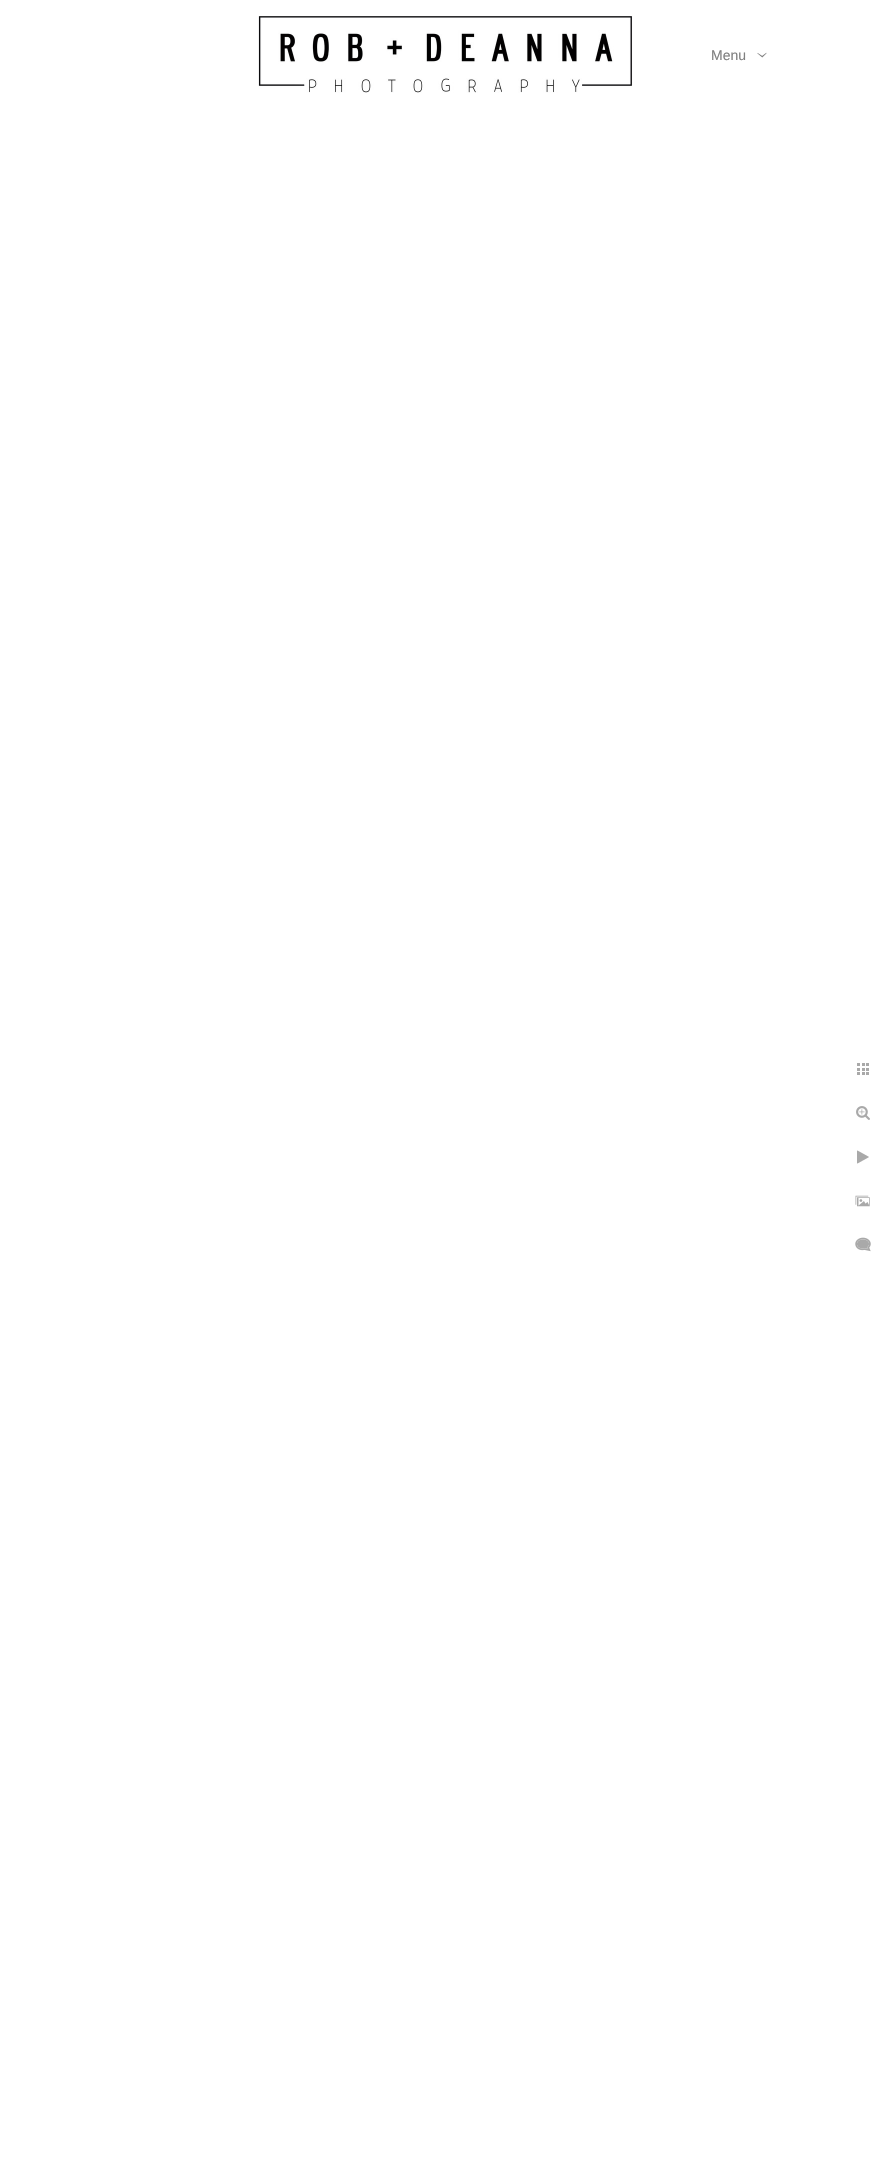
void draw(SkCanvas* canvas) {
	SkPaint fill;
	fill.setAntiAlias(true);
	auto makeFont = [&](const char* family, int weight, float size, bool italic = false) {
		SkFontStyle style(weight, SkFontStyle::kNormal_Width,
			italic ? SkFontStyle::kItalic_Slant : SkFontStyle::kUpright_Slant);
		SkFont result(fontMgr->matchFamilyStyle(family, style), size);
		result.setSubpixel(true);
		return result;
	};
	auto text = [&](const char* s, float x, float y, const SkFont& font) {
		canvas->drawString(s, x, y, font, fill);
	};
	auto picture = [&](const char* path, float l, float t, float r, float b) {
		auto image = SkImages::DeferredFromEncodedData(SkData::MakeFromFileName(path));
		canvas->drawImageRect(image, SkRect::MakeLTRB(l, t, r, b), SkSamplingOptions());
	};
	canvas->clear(0xFFFFFFFF);
	picture("image0.png", 258, 16, 633, 93);
	picture("image1.png", 757, 52, 767, 58);
	picture("image2.png", 857, 1063, 869, 1075);
	picture("image3.png", 856, 1106, 870, 1120);
	picture("image4.png", 857, 1150, 869, 1164);
	picture("image5.png", 855, 1195, 870, 1207);
	picture("image6.png", 855, 1237, 871, 1252);
	auto font1 = makeFont("Liberation Sans", 400, 14);
	fill.setColor(0xFF808080);
	text("Menu", 711, 60, font1);
}
